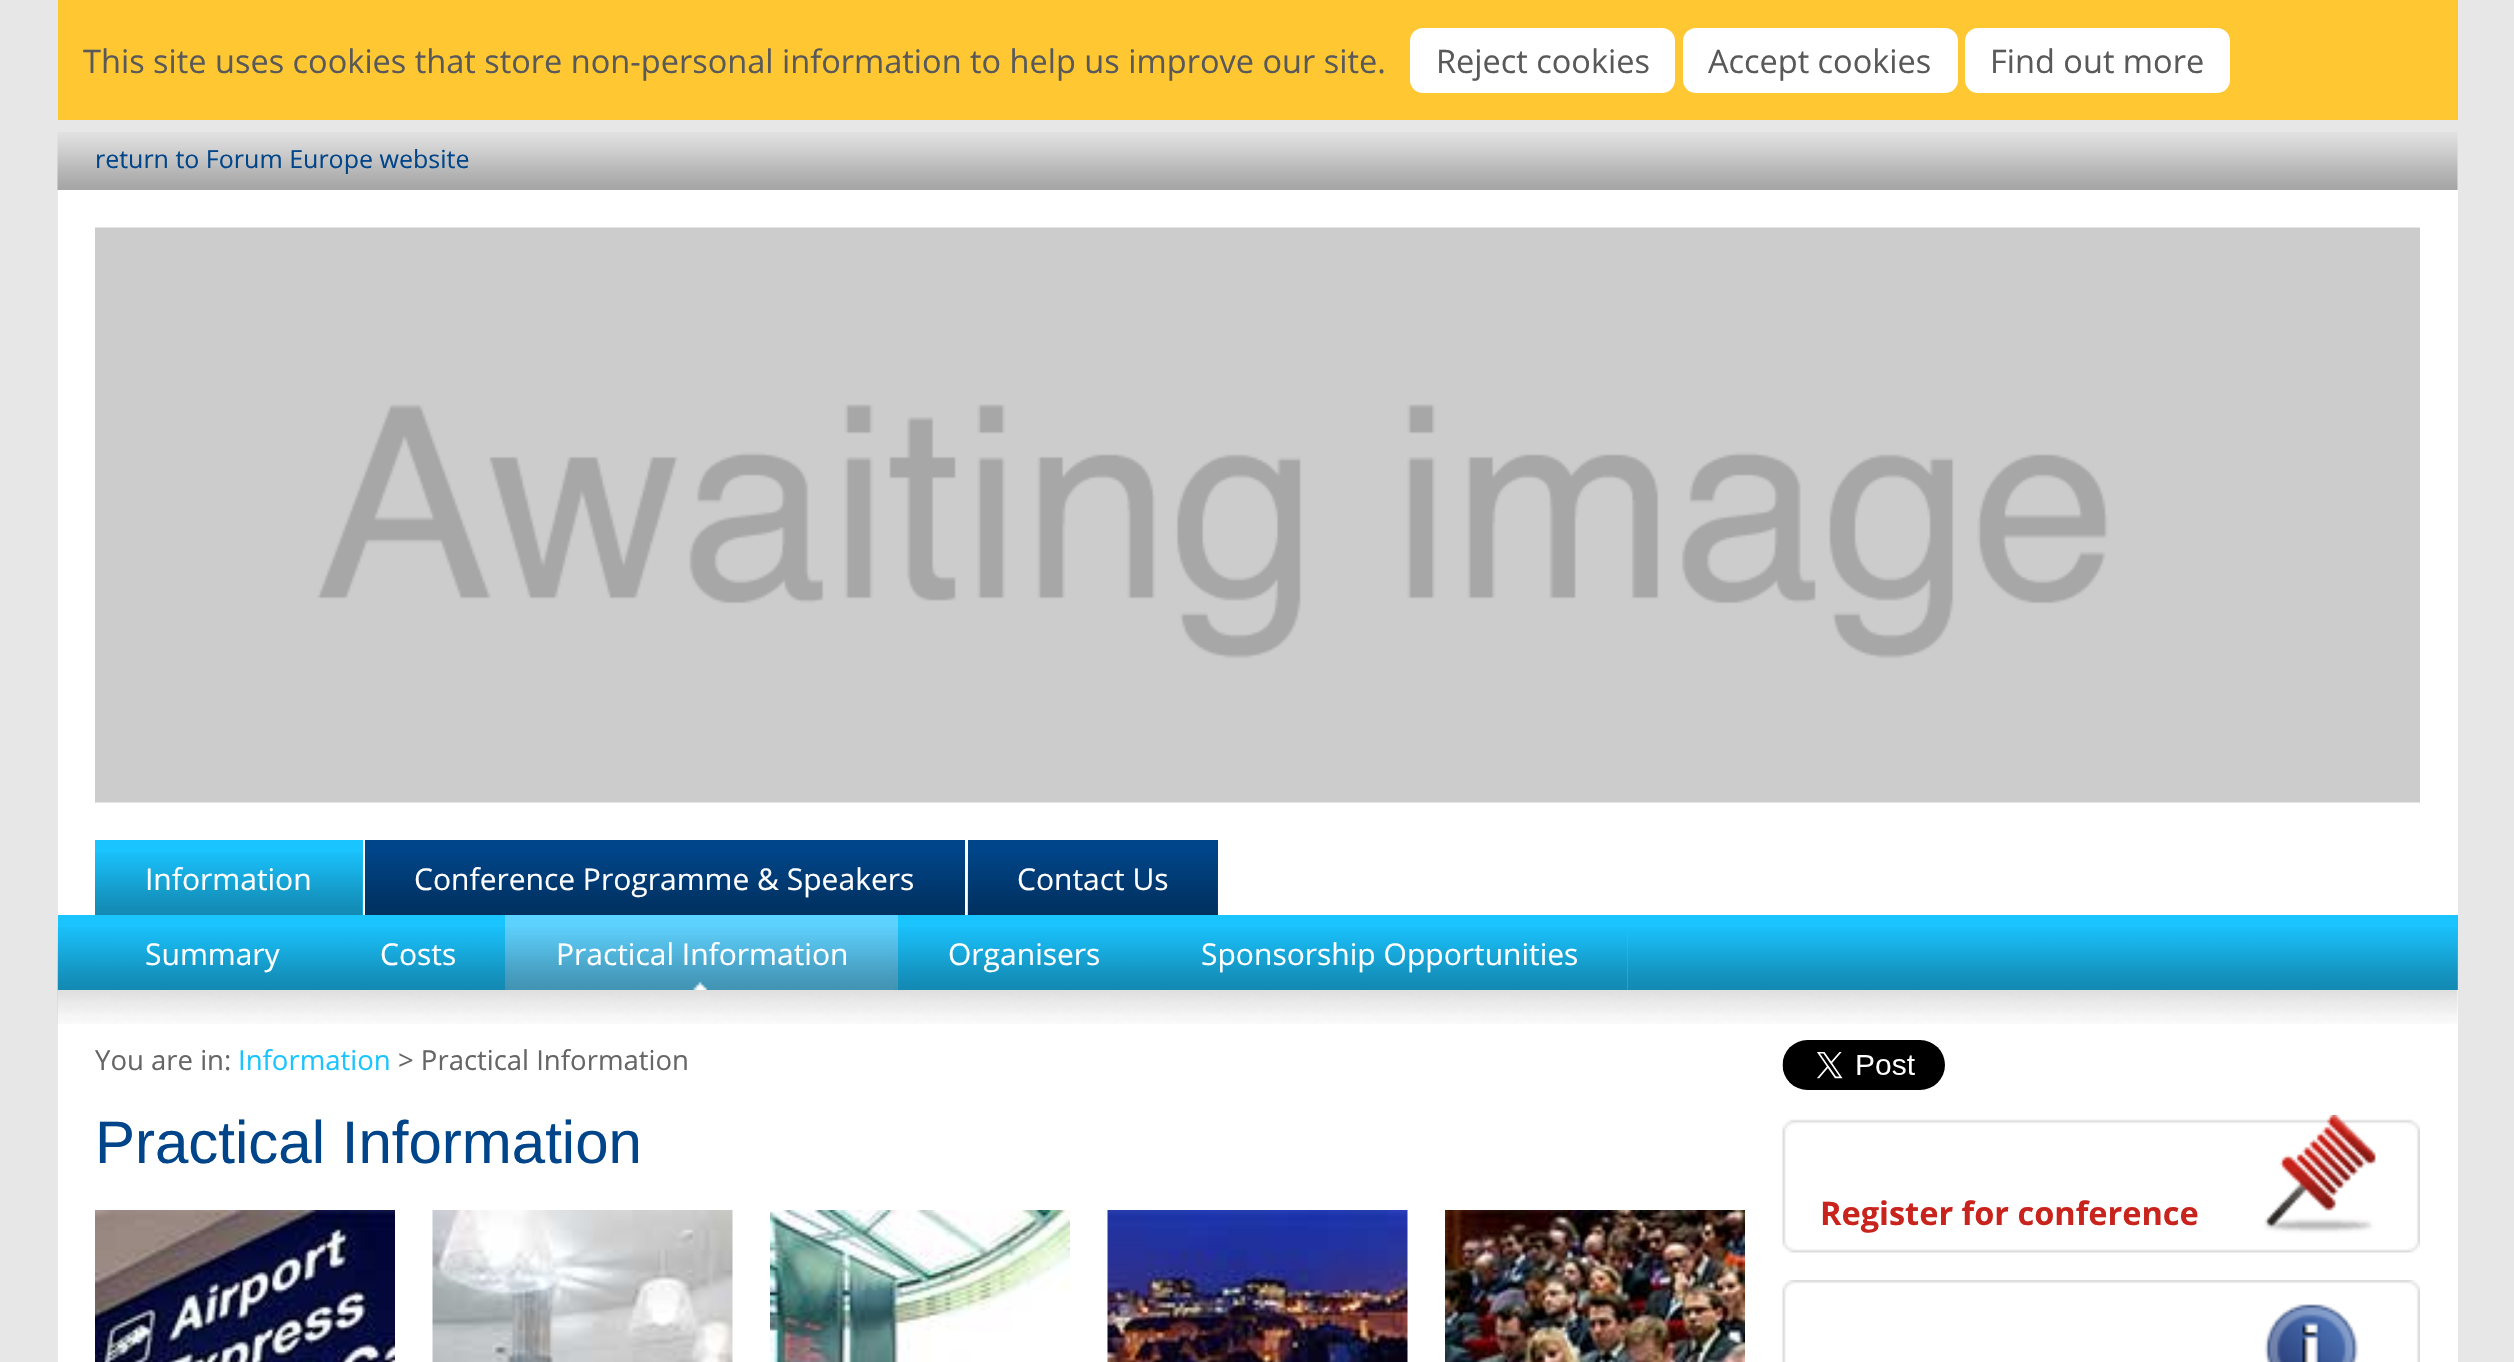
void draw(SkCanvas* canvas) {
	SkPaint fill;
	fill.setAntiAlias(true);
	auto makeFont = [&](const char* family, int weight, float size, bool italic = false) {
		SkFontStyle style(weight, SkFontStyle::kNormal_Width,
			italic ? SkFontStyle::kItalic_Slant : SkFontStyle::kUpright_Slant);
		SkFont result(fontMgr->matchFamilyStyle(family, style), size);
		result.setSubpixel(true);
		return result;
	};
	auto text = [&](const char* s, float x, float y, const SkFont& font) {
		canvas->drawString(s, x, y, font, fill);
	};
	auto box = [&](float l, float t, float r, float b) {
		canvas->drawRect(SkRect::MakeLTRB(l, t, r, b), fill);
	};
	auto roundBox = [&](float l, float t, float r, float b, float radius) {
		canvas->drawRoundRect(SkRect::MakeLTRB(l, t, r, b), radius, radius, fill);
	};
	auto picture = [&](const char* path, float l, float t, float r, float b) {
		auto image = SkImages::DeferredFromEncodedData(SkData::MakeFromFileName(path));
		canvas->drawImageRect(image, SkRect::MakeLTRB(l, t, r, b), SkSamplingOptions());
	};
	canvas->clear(0xFFE7E7E7);
	fill.setColor(0xFFFFFFFF);
	box(58, 190, 2458, 1362);
	fill.setColor(0xFFFFC832);
	box(58, 0, 2458, 120);
	fill.setColor(0xFFFFFFFF);
	roundBox(1410, 28, 1675, 93, 13);
	roundBox(1683, 28, 1958, 93, 13);
	roundBox(1965, 28, 2230, 93, 13);
	picture("image0.png", 57, 132, 2458, 190);
	picture("image1.png", 95, 227, 2420, 803);
	fill.setColor(0xFF1AC4FF);
	box(95, 840, 363, 915);
	picture("image2.png", 95, 852, 363, 915);
	fill.setColor(0xFF004589);
	box(365, 840, 965, 915);
	picture("image3.png", 365, 854, 965, 915);
	box(968, 840, 1218, 915);
	picture("image4.png", 967, 854, 1218, 915);
	fill.setColor(0xFF1AC4FF);
	box(58, 915, 2458, 990);
	picture("image5.png", 57, 927, 2458, 990);
	box(95, 927, 505, 990);
	picture("image6.png", 95, 927, 330, 990);
	picture("image7.png", 330, 927, 505, 990);
	fill.setColor(0xFF5ED2FF);
	box(505, 915, 898, 990);
	picture("image8.png", 505, 927, 898, 990);
	fill.setColor(0xFF1AC4FF);
	box(898, 927, 1628, 990);
	picture("image9.png", 897, 927, 1150, 990);
	picture("image10.png", 1150, 927, 1628, 990);
	picture("image11.png", 57, 990, 2458, 1024);
	picture("image12.png", 95, 1210, 395, 1362);
	picture("image13.png", 432, 1210, 733, 1362);
	picture("image14.png", 770, 1210, 1070, 1362);
	picture("image15.png", 1107, 1210, 1408, 1362);
	picture("image16.png", 1445, 1210, 1745, 1362);
	picture("image17.png", 1782, 1040, 1945, 1090);
	picture("image18.png", 1782, 1115, 2420, 1253);
	picture("image19.png", 1782, 1280, 2420, 1362);
	auto font1 = makeFont("Open Sans", 400, 32.5f);
	fill.setColor(0xFF595959);
	text("This site uses cookies that store non-personal information to help us improve our site.", 83, 73, font1);
	text("Reject cookies", 1436, 73, font1);
	text("Accept cookies", 1708, 73, font1);
	text("Find out more", 1990, 73, font1);
	auto font2 = makeFont("Open Sans", 400, 25);
	fill.setColor(0xFF004589);
	text("return to Forum Europe website", 95, 168, font2);
	auto font3 = makeFont("Open Sans", 400, 30);
	fill.setColor(0xFFFFFFFF);
	text("Information", 145, 890, font3);
	text("Conference Programme & Speakers", 414, 890, font3);
	text("Contact Us", 1017, 890, font3);
	text("Summary", 145, 965, font3);
	text("Costs", 380, 965, font3);
	text("Practical Information", 556, 965, font3);
	text("Organisers", 948, 965, font3);
	text("Sponsorship Opportunities", 1201, 965, font3);
	auto font4 = makeFont("Open Sans", 400, 27.5f);
	fill.setColor(0xFF666666);
	text("You are in:", 95, 1070, font4);
	fill.setColor(0xFF1AC4FF);
	text("Information", 238, 1070, font4);
	fill.setColor(0xFF666666);
	text("> Practical Information", 398, 1070, font4);
	auto font5 = makeFont("Liberation Sans", 400, 60);
	fill.setColor(0xFF004589);
	text("Practical Information", 95, 1163, font5);
	auto font6 = makeFont("Open Sans", 700, 32.5f);
	fill.setColor(0xFFC8231D);
	text("Register for conference", 1820, 1225, font6);
}
